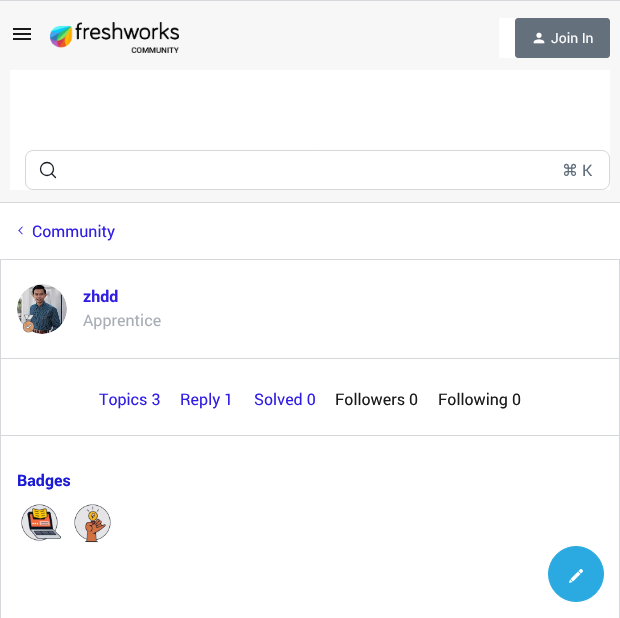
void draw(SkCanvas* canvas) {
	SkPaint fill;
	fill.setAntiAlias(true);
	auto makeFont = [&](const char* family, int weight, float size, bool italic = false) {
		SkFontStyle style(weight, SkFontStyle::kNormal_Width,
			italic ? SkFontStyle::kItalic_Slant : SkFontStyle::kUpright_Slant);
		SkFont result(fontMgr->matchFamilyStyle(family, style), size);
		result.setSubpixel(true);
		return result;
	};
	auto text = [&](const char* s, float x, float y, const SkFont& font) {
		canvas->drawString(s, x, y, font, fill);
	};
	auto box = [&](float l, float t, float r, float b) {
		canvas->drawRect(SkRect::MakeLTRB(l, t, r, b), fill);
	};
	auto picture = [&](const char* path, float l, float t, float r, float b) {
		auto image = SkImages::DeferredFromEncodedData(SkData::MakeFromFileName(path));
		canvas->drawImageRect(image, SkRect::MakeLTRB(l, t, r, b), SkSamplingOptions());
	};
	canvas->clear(0xFFFFFFFF);
	fill.setColor(0xFFF7F7F7);
	box(0, 1, 620, 202);
	fill.setColor(0xFFD5D7DB);
	box(0, 0, 620, 1);
	box(0, 202, 620, 203);
	picture("image0.png", 13, 28, 31, 40);
	picture("image1.png", 50, 22, 179, 53);
	fill.setColor(0xFFFFFFFF);
	box(499, 18, 610, 58);
	fill.setColor(0xFF64707B);
	canvas->drawRoundRect(SkRect::MakeLTRB(515.5f, 18.5f, 609.5f, 57.5f), 2.5f, 2.5f, fill);
	fill.setStyle(SkPaint::kStroke_Style);
	fill.setStrokeWidth(1);
	canvas->drawRoundRect(SkRect::MakeLTRB(515.5f, 18.5f, 609.5f, 57.5f), 2.5f, 2.5f, fill);
	picture("image2.png", 533, 32, 545, 44);
	fill.setStyle(SkPaint::kFill_Style);
	fill.setColor(0xFFFFFFFF);
	box(10, 70, 610, 190);
	fill.setStyle(SkPaint::kStroke_Style);
	fill.setColor(0xFFD5D7DB);
	canvas->drawRoundRect(SkRect::MakeLTRB(25.5f, 150.5f, 609.5f, 189.5f), 7.5f, 7.5f, fill);
	fill.setStrokeWidth(1.3f);
	fill.setColor(0xFF181F26);
	canvas->drawCircle(47, 169, 6.5f, fill);
	fill.setStrokeCap(SkPaint::kRound_Cap);
	canvas->drawPath(SkPathBuilder().moveTo(51.5f, 173.5f).lineTo(55.5f, 177.5f).detach(), fill);
	picture("image3.png", 18, 226, 23, 235);
	fill.setStrokeWidth(1);
	fill.setStrokeCap(SkPaint::kButt_Cap);
	fill.setColor(0xFFD5D7DB);
	canvas->drawRect(SkRect::MakeLTRB(0.5f, 259.5f, 619.5f, 358.5f), fill);
	picture("image4.png", 17, 284, 67, 334);
	picture("image5.png", 22, 314, 35, 333);
	fill.setStyle(SkPaint::kFill_Style);
	box(619, 359, 620, 618);
	box(0, 435, 620, 436);
	box(0, 359, 1, 436);
	box(0, 436, 1, 618);
	picture("image6.png", 21, 504, 61, 541);
	picture("image7.png", 74, 504, 111, 543);
	fill.setColor(0xFF2AAAE1);
	canvas->drawCircle(576, 574, 27.5f, fill);
	fill.setStyle(SkPaint::kStroke_Style);
	canvas->drawCircle(576, 574, 27.5f, fill);
	picture("image8.png", 569, 569, 583, 583);
	auto font1 = makeFont("Roboto", 400, 14);
	fill.setStyle(SkPaint::kFill_Style);
	fill.setColor(0xFFFFFFFF);
	text("Join In", 551, 43, font1);
	auto font2 = makeFont("DejaVu Sans", 400, 16);
	fill.setColor(0xFF5F6C7A);
	text("⌘", 562, 176, font2);
	auto font3 = makeFont("Roboto", 400, 16);
	text("K", 582, 176, font3);
	fill.setColor(0xFF311EE4);
	text("Community", 32, 237, font3);
	auto font4 = makeFont("Roboto", 700, 16);
	text("zhdd", 83, 302, font4);
	fill.setColor(0xFFA7AEB5);
	text("Apprentice", 83, 326, font3);
	fill.setColor(0xFF311EE4);
	text("Topics 3", 99, 405, font3);
	text("Reply 1", 180, 405, font3);
	text("Solved 0", 254, 405, font3);
	fill.setColor(0xFF1A1A1A);
	text("Followers 0", 335, 405, font3);
	text("Following 0", 438, 405, font3);
	fill.setColor(0xFF1B1AD6);
	text("Badges", 17, 486, font4);
}
